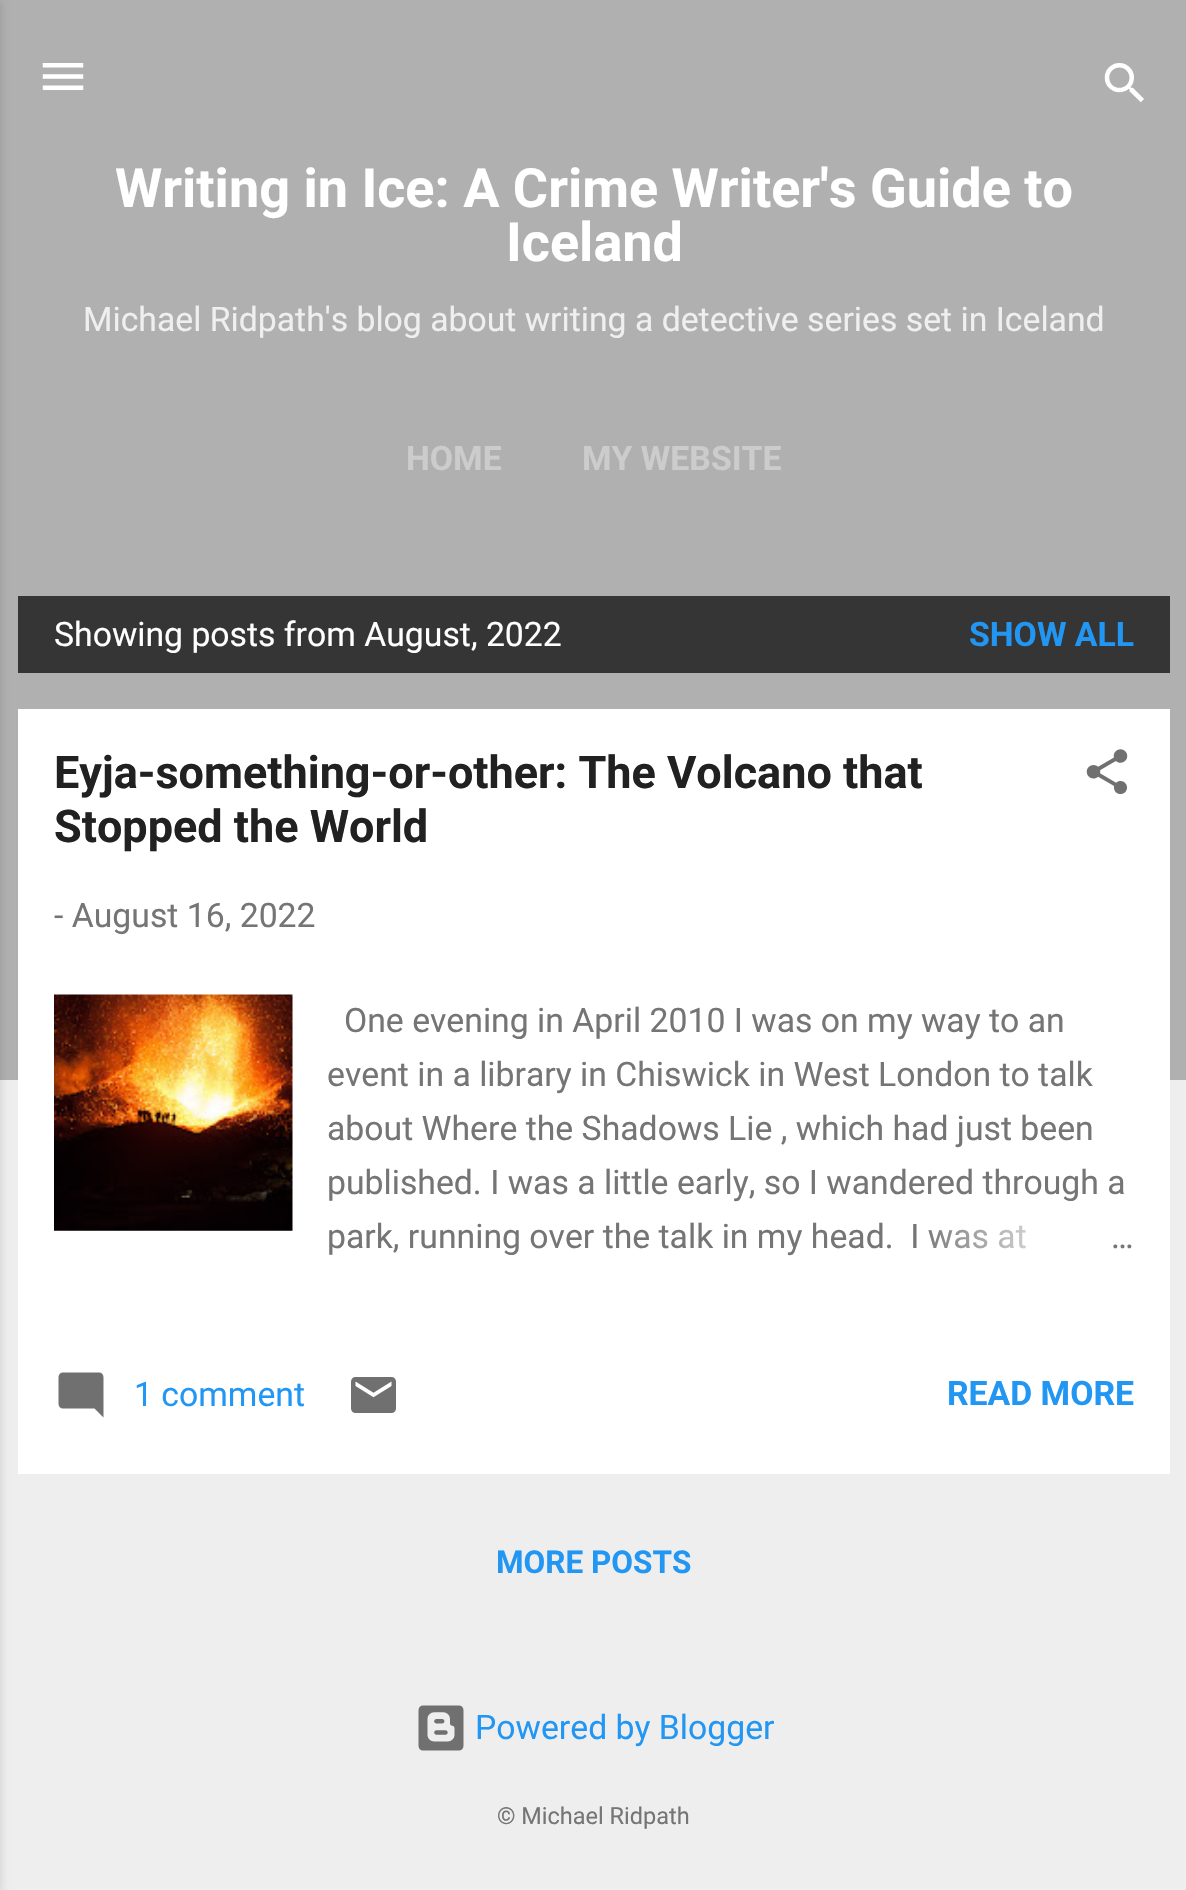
void draw(SkCanvas* canvas) {
	SkPaint fill;
	fill.setAntiAlias(true);
	auto makeFont = [&](const char* family, int weight, float size, bool italic = false) {
		SkFontStyle style(weight, SkFontStyle::kNormal_Width,
			italic ? SkFontStyle::kItalic_Slant : SkFontStyle::kUpright_Slant);
		SkFont result(fontMgr->matchFamilyStyle(family, style), size);
		result.setSubpixel(true);
		return result;
	};
	auto text = [&](const char* s, float x, float y, const SkFont& font) {
		canvas->drawString(s, x, y, font, fill);
	};
	auto box = [&](float l, float t, float r, float b) {
		canvas->drawRect(SkRect::MakeLTRB(l, t, r, b), fill);
	};
	auto picture = [&](const char* path, float l, float t, float r, float b) {
		auto image = SkImages::DeferredFromEncodedData(SkData::MakeFromFileName(path));
		canvas->drawImageRect(image, SkRect::MakeLTRB(l, t, r, b), SkSamplingOptions());
	};
	canvas->clear(0xFFEEEEEE);
	fill.setColor(0xFFB0B0B0);
	box(0, 0, 1186, 1080);
	fill.setColor(0x1A000000);
	fill.setMaskFilter(SkMaskFilter::MakeBlur(kNormal_SkBlurStyle, 3.5f));
	canvas->drawRect(SkRect::MakeLTRB(-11, 2, 2, 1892), fill);
	fill.setMaskFilter(nullptr);
	picture("image0.png", 42, 63, 84, 90);
	picture("image1.png", 1104, 63, 1144, 103);
	fill.setColor(0xFF353535);
	box(18, 596, 1170, 673);
	fill.setColor(0xFFFFFFFF);
	box(18, 709, 1170, 1474);
	picture("image2.png", 1086, 749, 1128, 794);
	picture("image3.png", 54, 994, 293, 1231);
	picture("image4.png", 58, 1372, 104, 1418);
	picture("image5.png", 351, 1377, 396, 1413);
	picture("image6.png", 418, 1705, 464, 1751);
	auto font1 = makeFont("Roboto", 700, 54);
	text("Writing in Ice: A Crime Writer's Guide to", 115, 207, font1);
	text("Iceland", 506, 261, font1);
	auto font2 = makeFont("Roboto", 400, 33.75f);
	fill.setColor(0xFFEFEFEF);
	text("Michael Ridpath's blog about writing a detective series set in Iceland", 83, 331, font2);
	auto font3 = makeFont("Roboto", 700, 33.75f);
	fill.setColor(0xFFCCCCCC);
	text("HOME", 406, 470, font3);
	text("MY WEBSITE", 582, 470, font3);
	fill.setColor(0xFFFFFFFF);
	text("Showing posts from August, 2022", 54, 646, font2);
	fill.setColor(0xFF2196F3);
	text("SHOW ALL", 969, 646, font3);
	auto font4 = makeFont("Roboto", 700, 45);
	fill.setColor(0xFF212121);
	text("Eyja-something-or-other: The Volcano that", 54, 788, font4);
	text("Stopped the World", 54, 842, font4);
	fill.setColor(0xFF757575);
	text("- August 16, 2022", 54, 927, font2);
	text("One evening in April 2010 I was on my way to an", 344, 1032, font2);
	text("event in a library in Chiswick in West London to talk", 327, 1086, font2);
	text("about Where the Shadows Lie , which had just been", 327, 1140, font2);
	text("published. I was a little early, so I wandered through a", 327, 1194, font2);
	text("park, running over the talk in my head.  I was at", 327, 1248, font2);
	{
		const SkColor colors[] = {0xFFFFFFFF, 0xFFFFFFFF, 0x00FFFFFF};
		const float stops[] = {0, 0.2f, 1};
		const SkPoint ends[] = {{1134, 1238}, {918, 1238}};
		fill.setShader(SkGradientShader::MakeLinear(ends, colors, stops, 3, SkTileMode::kClamp));
		fill.setAlpha(255);
	}
	box(929, 1225, 1026, 1249);
	fill.setShader(nullptr);
	fill.setColor(0xFF757575);
	text("…", 1111, 1248, font2);
	fill.setColor(0xFF2196F3);
	text("1 comment", 134, 1406, font2);
	text("READ MORE", 947, 1405, font3);
	auto font5 = makeFont("Roboto", 700, 31.5f);
	text("MORE POSTS", 496, 1573, font5);
	text("Powered by Blogger", 475, 1739, font2);
	auto font6 = makeFont("Roboto", 400, 23.5f);
	fill.setColor(0xFF757575);
	text("© Michael Ridpath", 497, 1824, font6);
}
